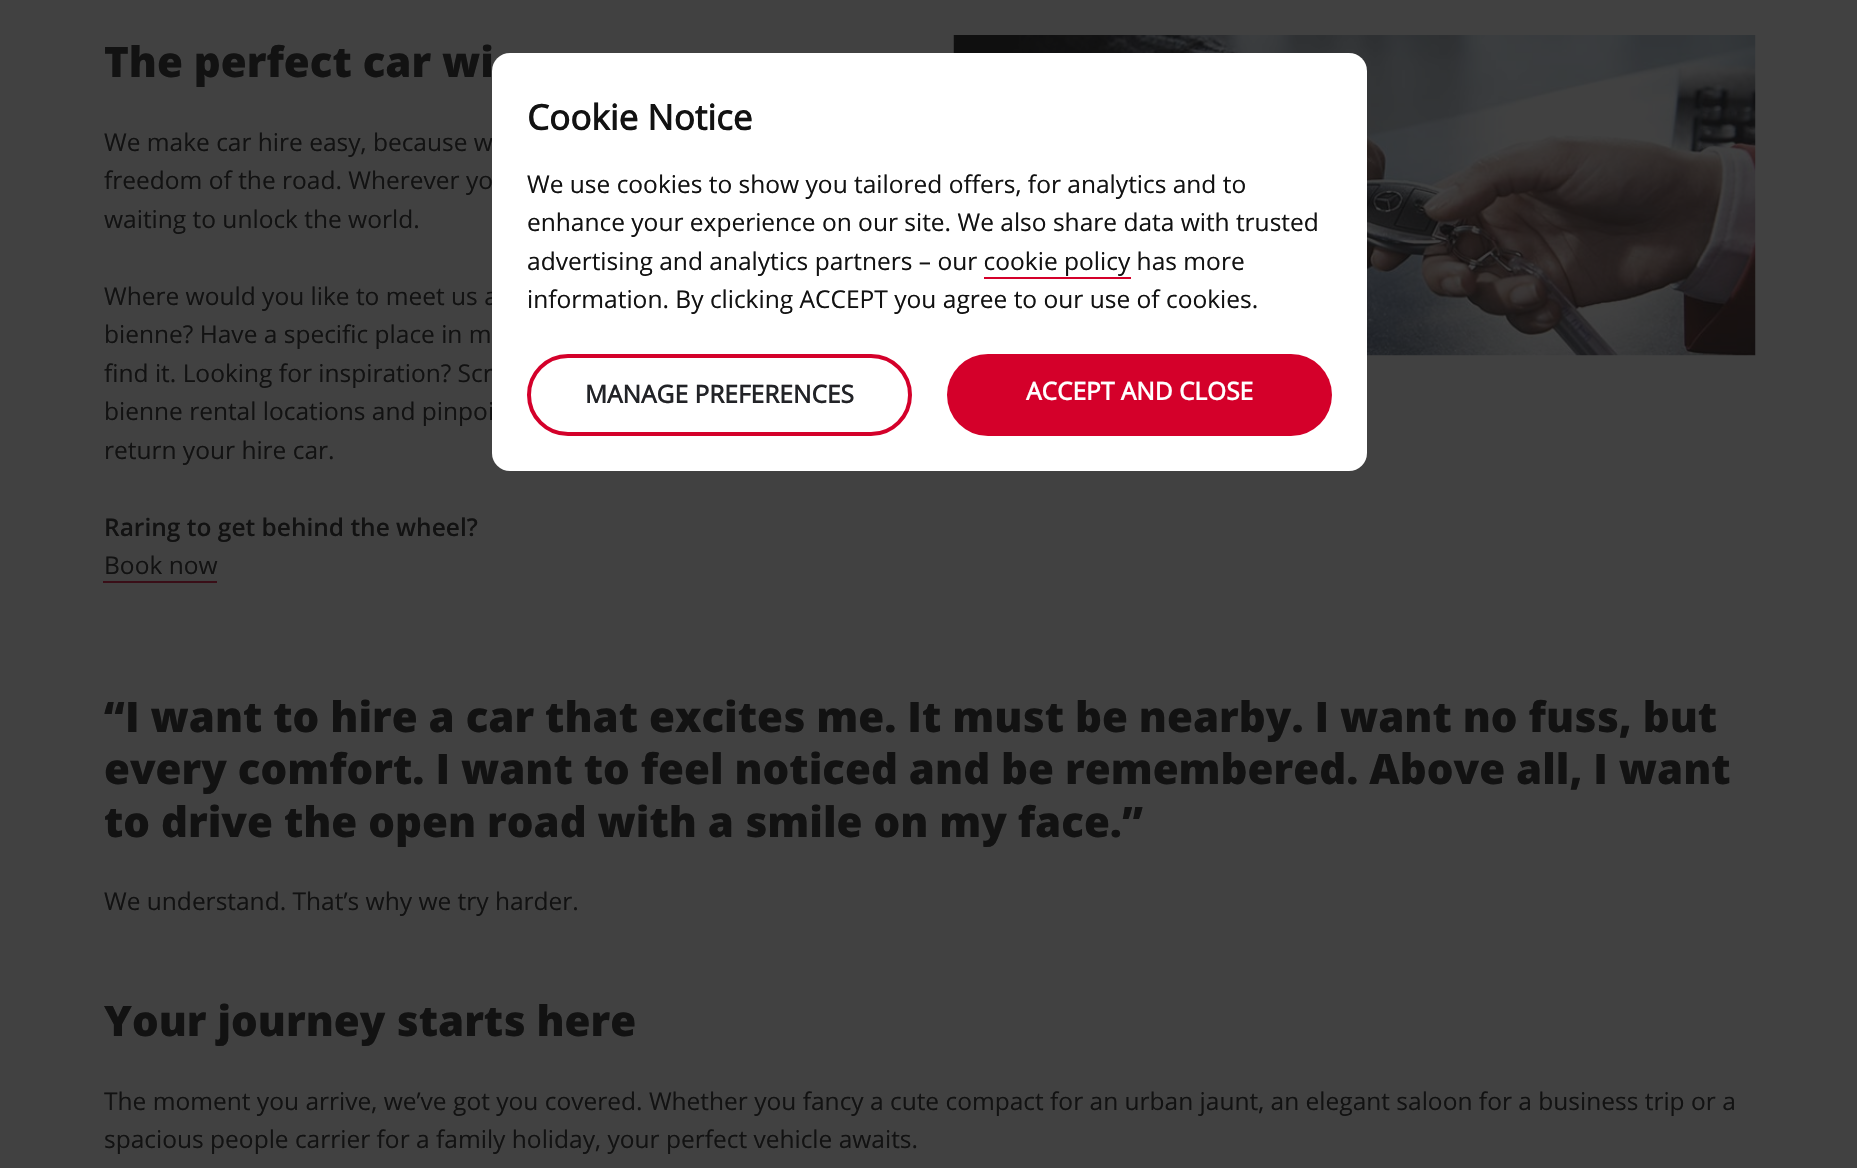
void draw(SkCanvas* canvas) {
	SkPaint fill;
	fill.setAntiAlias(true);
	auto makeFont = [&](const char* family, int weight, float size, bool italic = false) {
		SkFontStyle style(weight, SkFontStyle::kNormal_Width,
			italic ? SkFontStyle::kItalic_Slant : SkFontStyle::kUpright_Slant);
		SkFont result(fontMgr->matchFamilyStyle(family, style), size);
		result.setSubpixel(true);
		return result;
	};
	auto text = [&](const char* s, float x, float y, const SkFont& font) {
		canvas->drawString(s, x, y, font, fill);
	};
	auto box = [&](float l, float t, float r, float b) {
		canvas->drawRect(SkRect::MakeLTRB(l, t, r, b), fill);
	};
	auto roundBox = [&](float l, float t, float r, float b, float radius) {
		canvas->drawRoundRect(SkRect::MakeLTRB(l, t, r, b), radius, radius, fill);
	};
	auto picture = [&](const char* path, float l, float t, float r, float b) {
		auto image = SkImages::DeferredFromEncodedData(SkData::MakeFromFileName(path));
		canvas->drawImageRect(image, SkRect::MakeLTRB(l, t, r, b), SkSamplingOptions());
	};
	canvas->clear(0xFF414141);
	fill.setColor(0xFF390E17);
	box(103, 581, 217, 583);
	picture("image0.png", 953, 35, 1756, 356);
	auto font1 = makeFont("Open Sans", 800, 42);
	fill.setColor(0xFF121212);
	text("The perfect car wi", 104, 77, font1);
	auto font2 = makeFont("Open Sans", 400, 24.5f);
	text("We make car hire easy, because w", 104, 151, font2);
	text("freedom of the road. Wherever yo", 104, 189, font2);
	text("waiting to unlock the world.", 104, 228, font2);
	text("Where would you like to meet us a", 104, 305, font2);
	text("bienne? Have a specific place in m", 104, 343, font2);
	text("find it. Looking for inspiration? Scr", 104, 382, font2);
	text("bienne rental locations and pinpoi", 104, 420, font2);
	text("return your hire car.", 104, 459, font2);
	auto font3 = makeFont("Open Sans", 600, 24.5f);
	text("Raring to get behind the wheel?", 104, 536, font3);
	text("Book now", 104, 574, font2);
	text("“I want to hire a car that excites me. It must be nearby. I want no fuss, but", 104, 732, font1);
	text("every comfort. I want to feel noticed and be remembered. Above all, I want", 104, 784, font1);
	text("to drive the open road with a smile on my face.”", 104, 837, font1);
	text("We understand. That’s why we try harder.", 104, 910, font2);
	text("Your journey starts here", 104, 1036, font1);
	text("The moment you arrive, we’ve got you covered. Whether you fancy a cute compact for an urban jaunt, an elegant saloon for a business trip or a", 104, 1110, font2);
	text("spacious people carrier for a family holiday, your perfect vehicle awaits.", 104, 1148, font2);
	fill.setColor(0xFFFFFFFF);
	roundBox(492, 53, 1367, 471, 18);
	auto font4 = makeFont("Open Sans", 700, 35);
	fill.setColor(0xFF121212);
	text("Cookie Notice", 527, 130, font4);
	text("We use cookies to show you tailored offers, for analytics and to", 527, 193, font2);
	text("enhance your experience on our site. We also share data with trusted", 527, 231, font2);
	text("advertising and analytics partners – our cookie policy has more", 527, 270, font2);
	fill.setColor(0xFFD4002A);
	box(984, 277, 1131, 279);
	fill.setColor(0xFF121212);
	text("information. By clicking ACCEPT you agree to our use of cookies.", 527, 308, font2);
	fill.setStyle(SkPaint::kStroke_Style);
	fill.setStrokeWidth(4);
	fill.setColor(0xFFD4002A);
	canvas->drawRoundRect(SkRect::MakeLTRB(529, 356, 910, 434), 39, 39, fill);
	auto font5 = makeFont("Open Sans", 700, 24.5f);
	fill.setStyle(SkPaint::kFill_Style);
	fill.setColor(0xFF222327);
	text("MANAGE PREFERENCES", 585, 403, font5);
	fill.setColor(0xFFD4002A);
	roundBox(947, 354, 1332, 436, 41);
	fill.setColor(0xFFFFFFFF);
	text("ACCEPT AND CLOSE", 1026, 400, font5);
}
